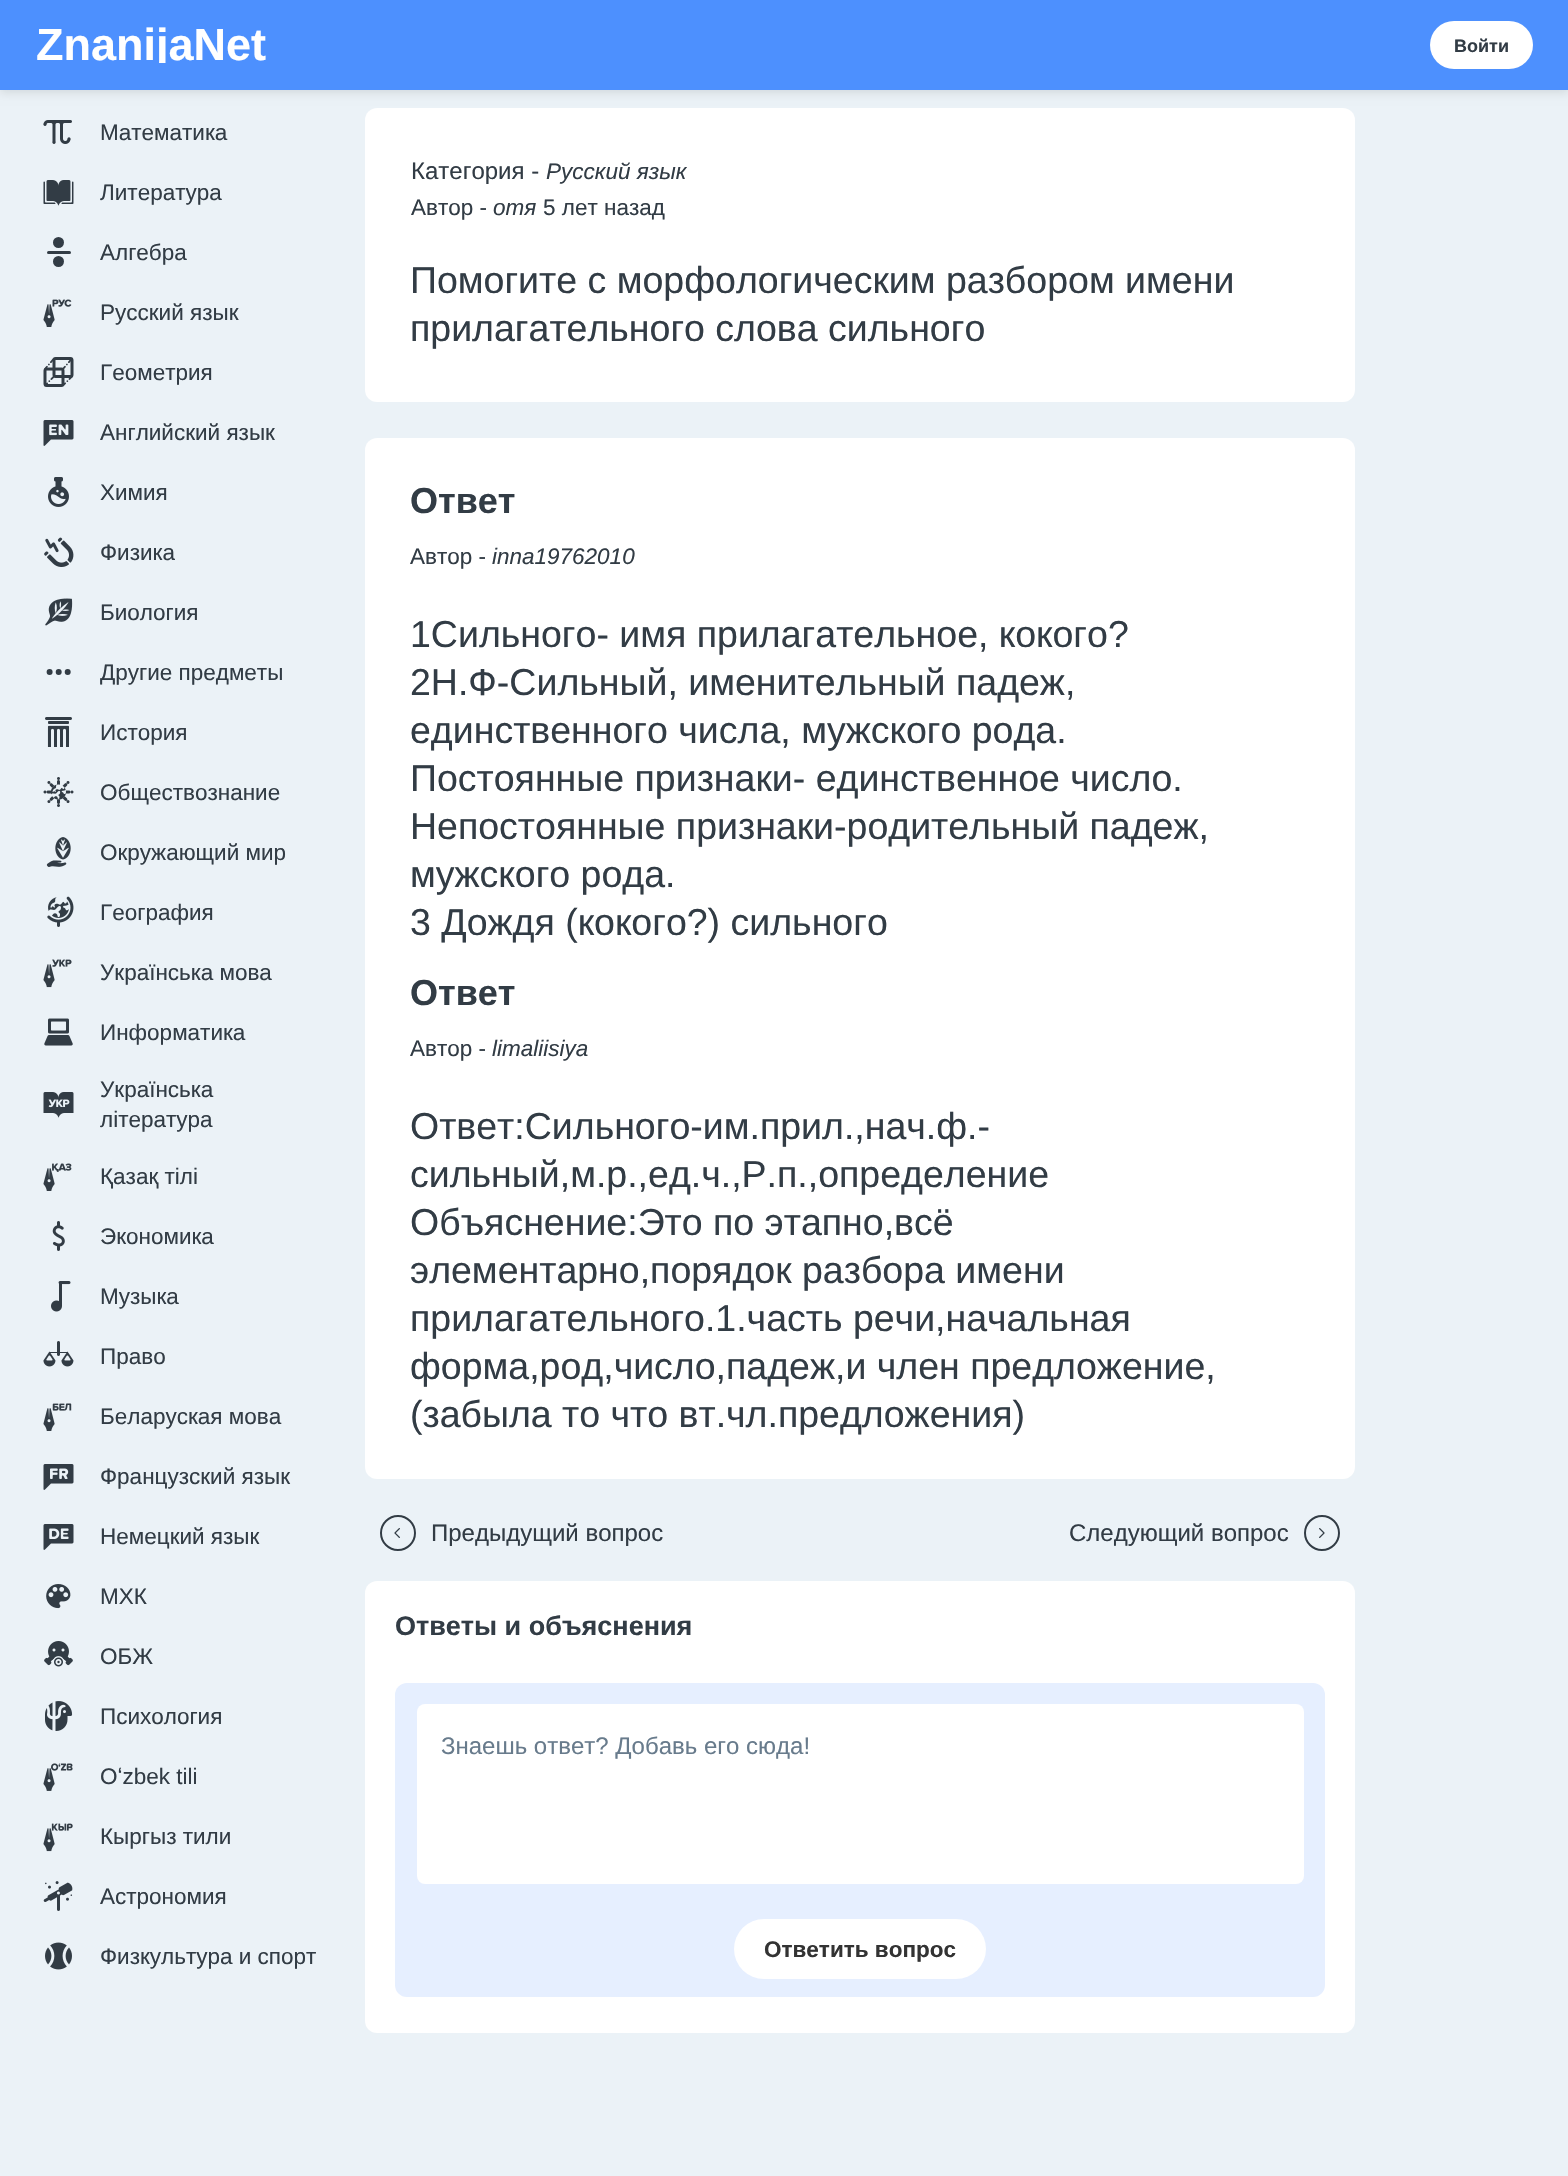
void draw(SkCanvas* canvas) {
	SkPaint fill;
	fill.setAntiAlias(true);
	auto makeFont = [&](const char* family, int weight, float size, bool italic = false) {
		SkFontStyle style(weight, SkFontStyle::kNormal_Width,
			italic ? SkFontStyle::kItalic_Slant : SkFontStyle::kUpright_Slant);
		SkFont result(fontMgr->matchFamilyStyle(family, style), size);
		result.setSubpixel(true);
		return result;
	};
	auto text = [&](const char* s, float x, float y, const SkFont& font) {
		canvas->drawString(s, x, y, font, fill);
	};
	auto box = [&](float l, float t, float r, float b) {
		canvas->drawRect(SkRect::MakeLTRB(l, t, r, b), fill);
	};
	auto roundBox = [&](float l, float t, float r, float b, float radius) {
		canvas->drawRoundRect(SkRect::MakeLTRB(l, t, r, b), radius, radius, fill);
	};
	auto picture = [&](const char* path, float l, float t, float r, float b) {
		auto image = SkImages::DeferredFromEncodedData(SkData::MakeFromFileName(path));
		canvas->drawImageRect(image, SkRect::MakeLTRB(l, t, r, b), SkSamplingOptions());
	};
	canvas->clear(0xFFEBF2F7);
	fill.setColor(0x1A000000);
	fill.setMaskFilter(SkMaskFilter::MakeBlur(kNormal_SkBlurStyle, 4.5f));
	canvas->drawRect(SkRect::MakeLTRB(0, 3, 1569, 93), fill);
	fill.setMaskFilter(nullptr);
	fill.setColor(0xFF4D90FE);
	box(0, 0, 1568, 90);
	fill.setColor(0xFFFFFFFF);
	roundBox(1430, 21, 1533, 69, 24);
	picture("image0.png", 43, 120, 72, 144);
	picture("image1.png", 43, 180, 74, 206);
	fill.setColor(0xFF323C45);
	roundBox(47, 251, 71, 254, 1.5f);
	canvas->drawCircle(58.5f, 261.5f, 5.5f, fill);
	canvas->drawCircle(58.5f, 242.5f, 5.5f, fill);
	picture("image2.png", 43, 299, 72, 327);
	picture("image3.png", 43, 357, 74, 387);
	picture("image4.png", 43, 420, 74, 446);
	picture("image5.png", 48, 477, 69, 507);
	picture("image6.png", 44, 537, 74, 567);
	picture("image7.png", 45, 598, 73, 626);
	canvas->drawCircle(49.6f, 671.9f, 3, fill);
	canvas->drawCircle(58.7f, 671.9f, 3, fill);
	canvas->drawCircle(67.7f, 671.9f, 3, fill);
	picture("image8.png", 45, 717, 72, 747);
	picture("image9.png", 43, 777, 74, 807);
	picture("image10.png", 46, 837, 71, 867);
	picture("image11.png", 47, 896, 74, 927);
	picture("image12.png", 43, 959, 72, 988);
	picture("image13.png", 44, 1018, 73, 1046);
	picture("image14.png", 43, 1092, 74, 1118);
	picture("image15.png", 43, 1163, 72, 1191);
	picture("image16.png", 52, 1221, 65, 1251);
	picture("image17.png", 51, 1281, 71, 1312);
	picture("image18.png", 43, 1341, 74, 1367);
	picture("image19.png", 43, 1403, 72, 1431);
	picture("image20.png", 43, 1464, 74, 1490);
	picture("image21.png", 43, 1524, 74, 1550);
	picture("image22.png", 46, 1584, 71, 1609);
	picture("image23.png", 44, 1641, 73, 1667);
	picture("image24.png", 45, 1701, 73, 1731);
	picture("image25.png", 43, 1763, 73, 1791);
	picture("image26.png", 43, 1823, 73, 1852);
	picture("image27.png", 43, 1881, 73, 1911);
	picture("image28.png", 45, 1942, 72, 1970);
	fill.setColor(0xFFFFFFFF);
	roundBox(365, 108, 1355, 402, 12);
	roundBox(365, 438, 1355, 1479, 12);
	fill.setStyle(SkPaint::kStroke_Style);
	fill.setStrokeWidth(2);
	fill.setColor(0xFF323C45);
	canvas->drawCircle(398, 1533, 17, fill);
	picture("image29.png", 394, 1528, 400, 1538);
	canvas->drawCircle(1322, 1533, 17, fill);
	picture("image30.png", 1319, 1528, 1325, 1538);
	fill.setStyle(SkPaint::kFill_Style);
	fill.setColor(0xFFFFFFFF);
	roundBox(365, 1581, 1355, 2033, 12);
	fill.setColor(0xFFE6EFFF);
	roundBox(395, 1683, 1325, 1997, 12);
	fill.setColor(0xFFFFFFFF);
	roundBox(417, 1704, 1304, 1884, 8);
	roundBox(734, 1919, 986, 1979, 30);
	canvas->save();
	canvas->clipRect(SkRect::MakeLTRB(36, 27, 266, 63));
	auto font1 = makeFont("Liberation Sans", 700, 45);
	text("ZnanijaNet", 36, 60, font1);
	canvas->restore();
	auto font2 = makeFont("Liberation Sans", 700, 18);
	fill.setColor(0xFF323C45);
	text("Войти", 1454, 52, font2);
	auto font3 = makeFont("Liberation Sans", 400, 22.5f);
	text("Математика", 100, 140, font3);
	text("Литература", 100, 200, font3);
	text("Алгебра", 100, 260, font3);
	text("Русский язык", 100, 320, font3);
	text("Геометрия", 100, 380, font3);
	text("Английский язык", 100, 440, font3);
	text("Химия", 100, 500, font3);
	text("Физика", 100, 560, font3);
	text("Биология", 100, 620, font3);
	text("Другие предметы", 100, 680, font3);
	text("История", 100, 740, font3);
	text("Обществознание", 100, 800, font3);
	text("Окружающий мир", 100, 860, font3);
	text("География", 100, 920, font3);
	text("Українська мова", 100, 980, font3);
	text("Информатика", 100, 1040, font3);
	text("Українська", 100, 1097, font3);
	text("література", 100, 1127, font3);
	text("Қазақ тiлi", 100, 1184, font3);
	text("Экономика", 100, 1244, font3);
	text("Музыка", 100, 1304, font3);
	text("Право", 100, 1364, font3);
	text("Беларуская мова", 100, 1424, font3);
	text("Французский язык", 100, 1484, font3);
	text("Немецкий язык", 100, 1544, font3);
	text("МХК", 100, 1604, font3);
	text("ОБЖ", 100, 1664, font3);
	text("Психология", 100, 1724, font3);
	text("Оʻzbek tili", 100, 1784, font3);
	text("Кыргыз тили", 100, 1844, font3);
	text("Астрономия", 100, 1904, font3);
	text("Физкультура и спорт", 100, 1964, font3);
	auto font4 = makeFont("Liberation Sans", 400, 24);
	text("Категория -", 411, 179, font4);
	auto font5 = makeFont("Liberation Sans", 400, 22.5f, true);
	text("Русский язык", 546, 179, font5);
	text("Автор -", 411, 215, font3);
	text("отя", 493, 215, font5);
	text("5 лет назад", 543, 215, font3);
	auto font6 = makeFont("Liberation Sans", 400, 37.5f);
	text("Помогите с морфологическим разбором имени", 410, 293, font6);
	text("прилагательного слова сильного", 410, 341, font6);
	auto font7 = makeFont("Liberation Sans", 700, 36);
	text("Ответ", 410, 513, font7);
	text("Автор -", 410, 564, font3);
	text("inna19762010", 492, 564, font5);
	text("1Сильного- имя прилагательное, кокого?", 410, 647, font6);
	text("2Н.Ф-Сильный, именительный падеж,", 410, 695, font6);
	text("единственного числа, мужского рода.", 410, 743, font6);
	text("Постоянные признаки- единственное число.", 410, 791, font6);
	text("Непостоянные признаки-родительный падеж,", 410, 839, font6);
	text("мужского рода.", 410, 887, font6);
	text("3 Дождя (кокого?) сильного", 410, 935, font6);
	text("Ответ", 410, 1005, font7);
	text("Автор -", 410, 1056, font3);
	text("limaliisiya", 492, 1056, font5);
	text("Ответ:Сильного-им.прил.,нач.ф.-", 410, 1139, font6);
	text("сильный,м.р.,ед.ч.,Р.п.,определение", 410, 1187, font6);
	text("Объяснение:Это по этапно,всё", 410, 1235, font6);
	text("элементарно,порядок разбора имени", 410, 1283, font6);
	text("прилагательного.1.часть речи,начальная", 410, 1331, font6);
	text("форма,род,число,падеж,и член предложение,", 410, 1379, font6);
	text("(забыла то что вт.чл.предложения)", 410, 1427, font6);
	text("Предыдущий вопрос", 431, 1541, font4);
	text("Следующий вопрос", 1069, 1541, font4);
	auto font8 = makeFont("Liberation Sans", 700, 27);
	text("Ответы и объяснения", 395, 1635, font8);
	fill.setColor(0xFF687B8C);
	text("Знаешь ответ? Добавь его сюда!", 441, 1754, font4);
	auto font9 = makeFont("Liberation Sans", 700, 22.5f);
	fill.setColor(0xFF333333);
	text("Ответить вопрос", 764, 1957, font9);
}
